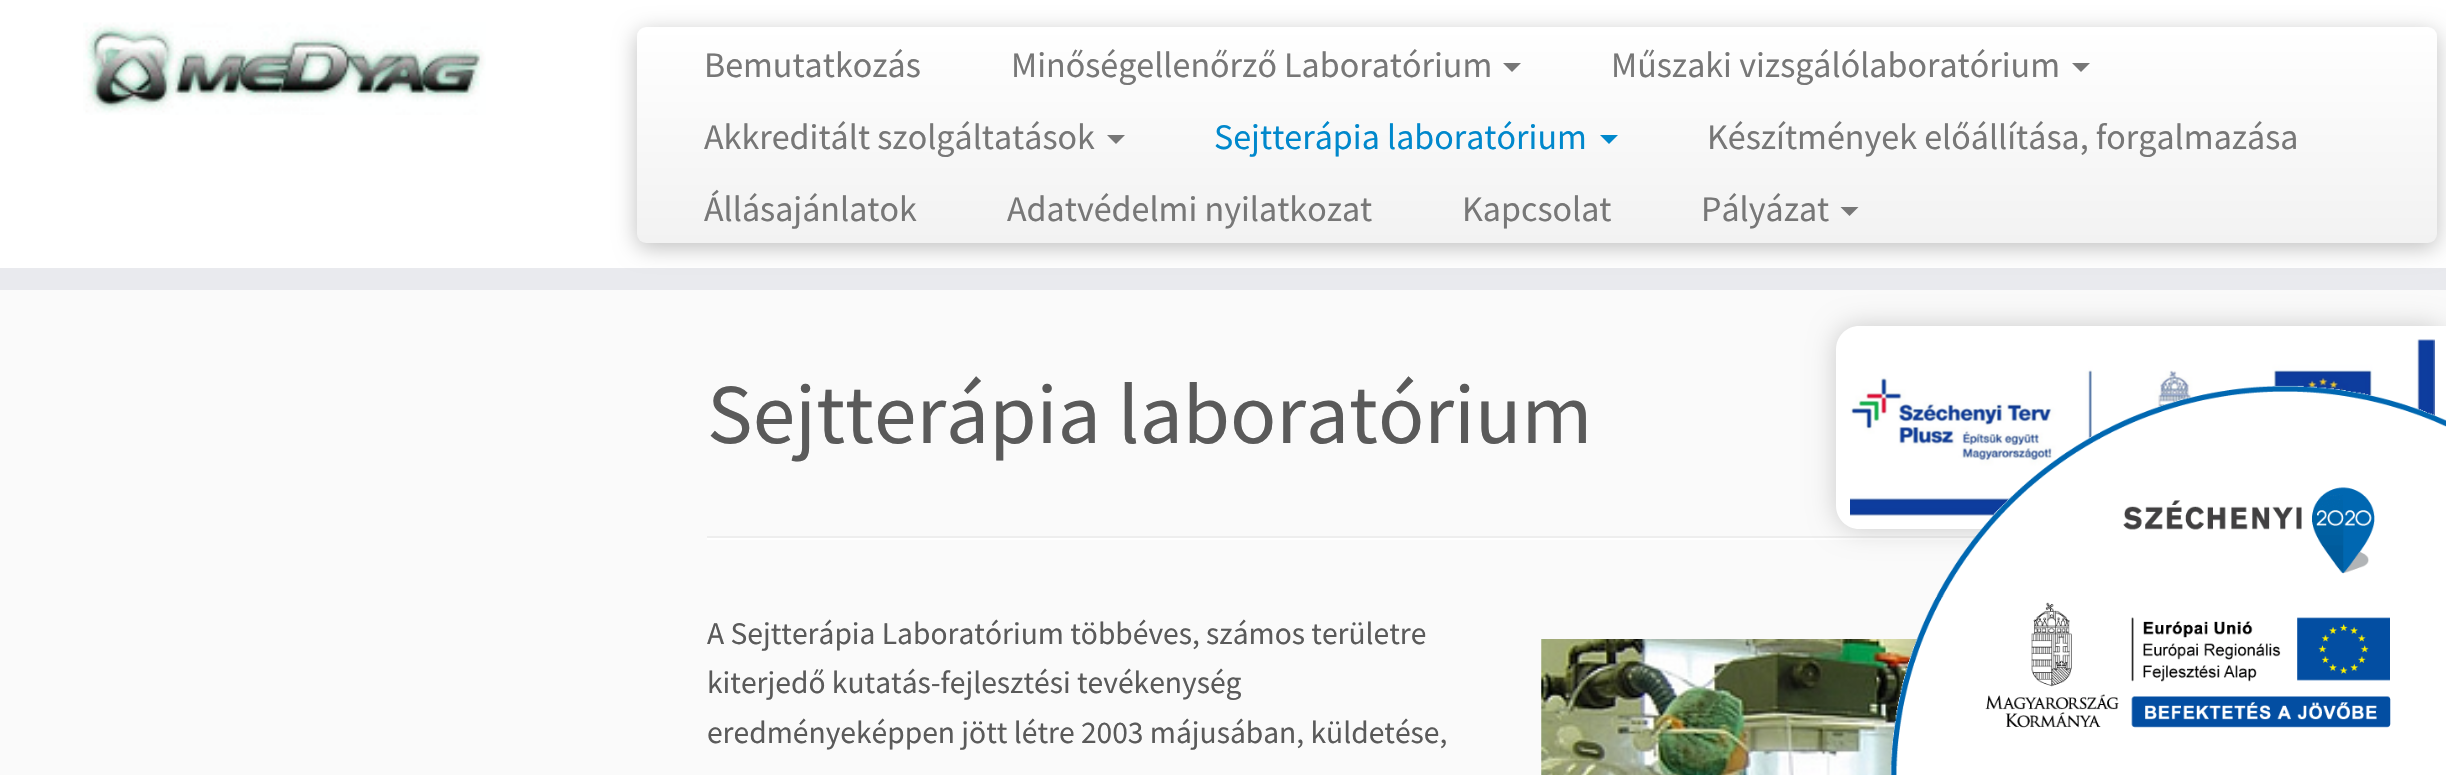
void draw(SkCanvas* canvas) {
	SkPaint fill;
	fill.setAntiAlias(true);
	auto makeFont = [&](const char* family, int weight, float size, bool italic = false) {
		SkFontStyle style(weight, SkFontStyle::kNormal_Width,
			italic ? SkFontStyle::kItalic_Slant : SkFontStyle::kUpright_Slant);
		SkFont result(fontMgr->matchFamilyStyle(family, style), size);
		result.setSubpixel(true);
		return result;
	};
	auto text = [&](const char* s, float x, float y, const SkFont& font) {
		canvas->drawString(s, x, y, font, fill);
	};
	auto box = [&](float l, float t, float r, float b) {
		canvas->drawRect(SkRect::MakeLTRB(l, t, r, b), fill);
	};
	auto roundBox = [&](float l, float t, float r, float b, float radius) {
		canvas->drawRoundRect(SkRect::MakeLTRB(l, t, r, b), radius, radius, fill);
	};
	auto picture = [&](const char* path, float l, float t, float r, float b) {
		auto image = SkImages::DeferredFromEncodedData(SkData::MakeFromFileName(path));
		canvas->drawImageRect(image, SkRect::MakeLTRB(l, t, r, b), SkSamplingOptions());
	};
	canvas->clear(0xFFFAFAFA);
	fill.setColor(0xFFFFFFFF);
	box(0, 0, 2446, 268);
	fill.setColor(0xFFE9EAEE);
	box(0, 268, 2446, 290);
	picture("image0.png", 83, 22, 486, 115);
	fill.setColor(0x40000000);
	fill.setMaskFilter(SkMaskFilter::MakeBlur(kNormal_SkBlurStyle, 11));
	canvas->drawRoundRect(SkRect::MakeLTRB(637, 32, 2437, 248), 9, 9, fill);
	fill.setMaskFilter(nullptr);
	{
		const SkColor colors[] = {0xFFFFFFFF, 0xFFF2F2F2};
		const float stops[] = {0, 1};
		const SkPoint ends[] = {{1537, 27}, {1537, 243}};
		fill.setShader(SkGradientShader::MakeLinear(ends, colors, stops, 2, SkTileMode::kClamp));
		fill.setAlpha(255);
	}
	roundBox(637, 27, 2437, 243, 9);
	fill.setShader(nullptr);
	fill.setColor(0xFF777777);
	canvas->drawPath(SkPathBuilder().moveTo(1503, 63).lineTo(1521, 63).lineTo(1512, 72).close().detach(), fill);
	canvas->drawPath(SkPathBuilder().moveTo(2072, 63).lineTo(2090, 63).lineTo(2081, 72).close().detach(), fill);
	canvas->drawPath(SkPathBuilder().moveTo(1107, 135).lineTo(1125, 135).lineTo(1116, 144).close().detach(), fill);
	fill.setColor(0xFF0088CC);
	canvas->drawPath(SkPathBuilder().moveTo(1600, 135).lineTo(1618, 135).lineTo(1609, 144).close().detach(), fill);
	fill.setColor(0xFF777777);
	canvas->drawPath(SkPathBuilder().moveTo(1840.5f, 207).lineTo(1858.5f, 207).lineTo(1849.5f, 216).close().detach(), fill);
	fill.setColor(0xFFEEEEEE);
	box(707, 536, 1976, 538);
	fill.setColor(0xFFFFFFFF);
	box(707, 538, 1974, 540);
	picture("image1.png", 1541, 639, 1917, 775);
	fill.setColor(0x30000000);
	fill.setMaskFilter(SkMaskFilter::MakeBlur(kNormal_SkBlurStyle, 13.5f));
	canvas->drawRoundRect(SkRect::MakeLTRB(1836, 326, 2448, 529), 23, 23, fill);
	fill.setMaskFilter(nullptr);
	fill.setColor(0xFFFFFFFF);
	canvas->drawPath(SkPathBuilder().moveTo(1859, 326).lineTo(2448, 326).lineTo(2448, 529).lineTo(1859, 529).cubicTo(1846.5f, 529, 1836, 518.5f, 1836, 506).lineTo(1836, 349).cubicTo(1836, 336.5f, 1846.5f, 326, 1859, 326).close().detach(), fill);
	picture("image2.png", 1850, 339, 2435, 516);
	picture("image3.png", 1890, 385, 2446, 775);
	auto font1 = makeFont("Source Sans Pro", 400, 36);
	fill.setColor(0xFF777777);
	text("Bemutatkozás", 704, 77, font1);
	text("Minőségellenőrző Laboratórium", 1011, 77, font1);
	text("Műszaki vizsgálólaboratórium", 1611, 77, font1);
	text("Akkreditált szolgáltatások", 704, 149, font1);
	fill.setColor(0xFF0088CC);
	text("Sejtterápia laboratórium", 1214, 149, font1);
	fill.setColor(0xFF777777);
	text("Készítmények előállítása, forgalmazása", 1707, 149, font1);
	text("Állásajánlatok", 704, 221, font1);
	text("Adatvédelmi nyilatkozat", 1007, 221, font1);
	text("Kapcsolat", 1462, 221, font1);
	text("Pályázat", 1701, 221, font1);
	auto font2 = makeFont("Source Sans Pro", 400, 85.5f);
	fill.setColor(0xFF5A5A5A);
	text("Sejtterápia laboratórium", 707, 443, font2);
	auto font3 = makeFont("Source Sans Pro", 400, 31.5f);
	text("A Sejtterápia Laboratórium többéves, számos területre", 707, 644, font3);
	text("kiterjedő kutatás-fejlesztési tevékenység", 707, 693, font3);
	text("eredményeképpen jött létre 2003 májusában, küldetése,", 707, 743, font3);
}
